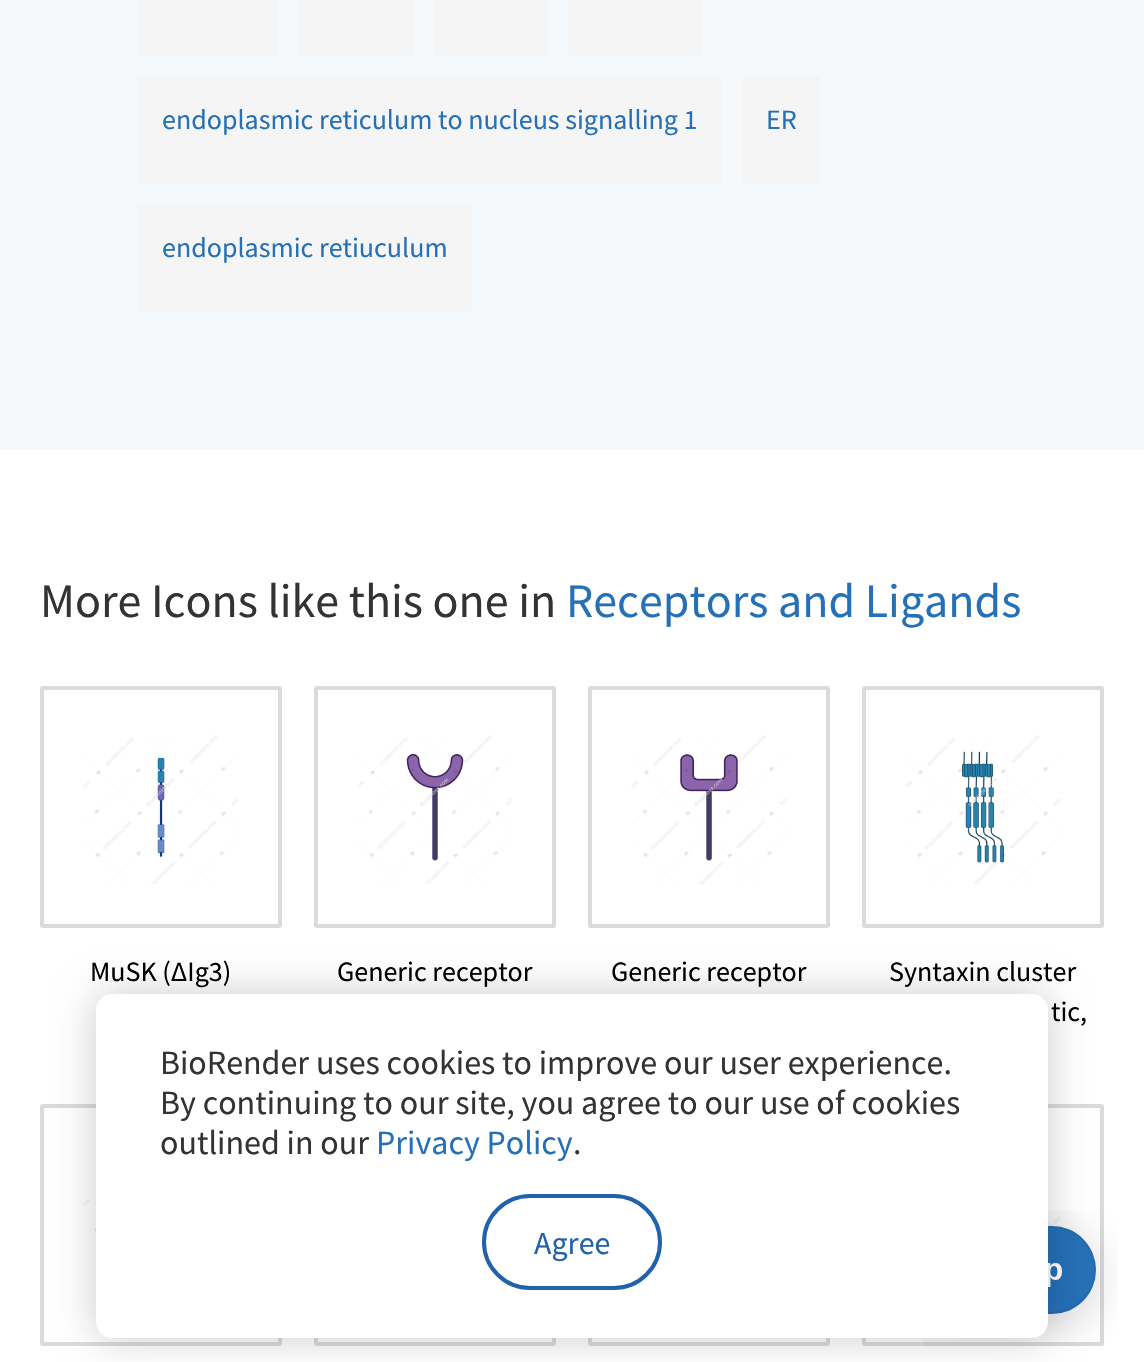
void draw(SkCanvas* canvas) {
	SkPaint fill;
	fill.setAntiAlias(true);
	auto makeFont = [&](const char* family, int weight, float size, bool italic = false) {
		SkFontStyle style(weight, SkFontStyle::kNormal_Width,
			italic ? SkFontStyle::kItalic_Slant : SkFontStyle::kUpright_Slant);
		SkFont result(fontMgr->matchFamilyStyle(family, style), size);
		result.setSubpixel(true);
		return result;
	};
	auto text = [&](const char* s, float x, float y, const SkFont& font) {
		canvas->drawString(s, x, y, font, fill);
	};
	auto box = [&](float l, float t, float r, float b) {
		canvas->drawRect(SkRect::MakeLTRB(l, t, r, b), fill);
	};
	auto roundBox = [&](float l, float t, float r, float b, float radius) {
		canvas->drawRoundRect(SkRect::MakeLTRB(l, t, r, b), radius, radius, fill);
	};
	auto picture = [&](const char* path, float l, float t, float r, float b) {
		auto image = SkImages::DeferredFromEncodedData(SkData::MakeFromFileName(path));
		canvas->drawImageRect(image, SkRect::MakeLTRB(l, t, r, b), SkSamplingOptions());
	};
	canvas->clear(0xFFFFFFFF);
	fill.setColor(0xFFF6F9FC);
	box(0, 0, 1144, 450);
	fill.setColor(0xFFF5F5F5);
	box(138, 0, 278, 56);
	box(298, 0, 414, 56);
	box(434, 0, 548, 56);
	box(568, 0, 702, 56);
	box(138, 76, 722, 184);
	box(742, 76, 820, 184);
	box(138, 204, 472, 312);
	fill.setStyle(SkPaint::kStroke_Style);
	fill.setStrokeWidth(4);
	fill.setColor(0xFFDBDBDB);
	canvas->drawRoundRect(SkRect::MakeLTRB(42, 688, 280, 926), 1, 1, fill);
	picture("image0.png", 83, 735, 239, 884);
	canvas->drawRoundRect(SkRect::MakeLTRB(316, 688, 554, 926), 1, 1, fill);
	picture("image1.png", 357, 735, 513, 884);
	canvas->drawRoundRect(SkRect::MakeLTRB(590, 688, 828, 926), 1, 1, fill);
	picture("image2.png", 631, 735, 787, 884);
	canvas->drawRoundRect(SkRect::MakeLTRB(864, 688, 1102, 926), 1, 1, fill);
	picture("image3.png", 905, 735, 1061, 884);
	canvas->drawRoundRect(SkRect::MakeLTRB(42, 1106, 280, 1344), 1, 1, fill);
	picture("image4.png", 83, 1153, 96, 1302);
	canvas->drawRoundRect(SkRect::MakeLTRB(316, 1106, 554, 1344), 1, 1, fill);
	canvas->drawRoundRect(SkRect::MakeLTRB(590, 1106, 828, 1344), 1, 1, fill);
	canvas->drawRoundRect(SkRect::MakeLTRB(864, 1106, 1102, 1344), 1, 1, fill);
	picture("image5.png", 1048, 1153, 1061, 1227);
	picture("image6.png", 923, 1210, 1118, 1347);
	fill.setStyle(SkPaint::kFill_Style);
	fill.setColor(0x33000000);
	fill.setMaskFilter(SkMaskFilter::MakeBlur(kNormal_SkBlurStyle, 20));
	canvas->drawRoundRect(SkRect::MakeLTRB(96, 994, 1048, 1338), 16, 16, fill);
	fill.setMaskFilter(nullptr);
	fill.setColor(0xFFFFFFFF);
	roundBox(96, 994, 1048, 1338, 16);
	fill.setStyle(SkPaint::kStroke_Style);
	fill.setColor(0xFF2062AB);
	canvas->drawRoundRect(SkRect::MakeLTRB(484, 1196, 660, 1288), 46, 46, fill);
	auto font1 = makeFont("Source Sans Pro", 400, 28);
	fill.setStyle(SkPaint::kFill_Style);
	fill.setColor(0xFF2570B7);
	text("endoplasmic reticulum to nucleus signalling 1", 162, 129, font1);
	text("ER", 766, 129, font1);
	text("endoplasmic retiuculum", 162, 257, font1);
	auto font2 = makeFont("Source Sans Pro", 400, 48);
	fill.setColor(0xFF333333);
	text("More Icons like this one in", 40, 617, font2);
	fill.setColor(0xFF2570B7);
	text("Receptors and Ligands", 566, 617, font2);
	fill.setColor(0xFF000000);
	text("MuSK (ΔIg3)", 90, 981, font1);
	text("Generic receptor", 337, 981, font1);
	text("Generic receptor", 611, 981, font1);
	text("Syntaxin cluster", 889, 981, font1);
	text("tic,", 1051, 1021, font1);
	auto font3 = makeFont("Source Sans Pro", 400, 34);
	fill.setColor(0xFF333333);
	text("BioRender uses cookies to improve our user experience.", 160, 1074, font3);
	text("By continuing to our site, you agree to our use of cookies", 160, 1114, font3);
	text("outlined in our", 160, 1154, font3);
	fill.setColor(0xFF2570B7);
	text("Privacy Policy", 376, 1154, font3);
	fill.setColor(0xFF333333);
	text(".", 573, 1154, font3);
	auto font4 = makeFont("Source Sans Pro", 400, 32);
	fill.setColor(0xFF2062AB);
	text("Agree", 534, 1254, font4);
}
